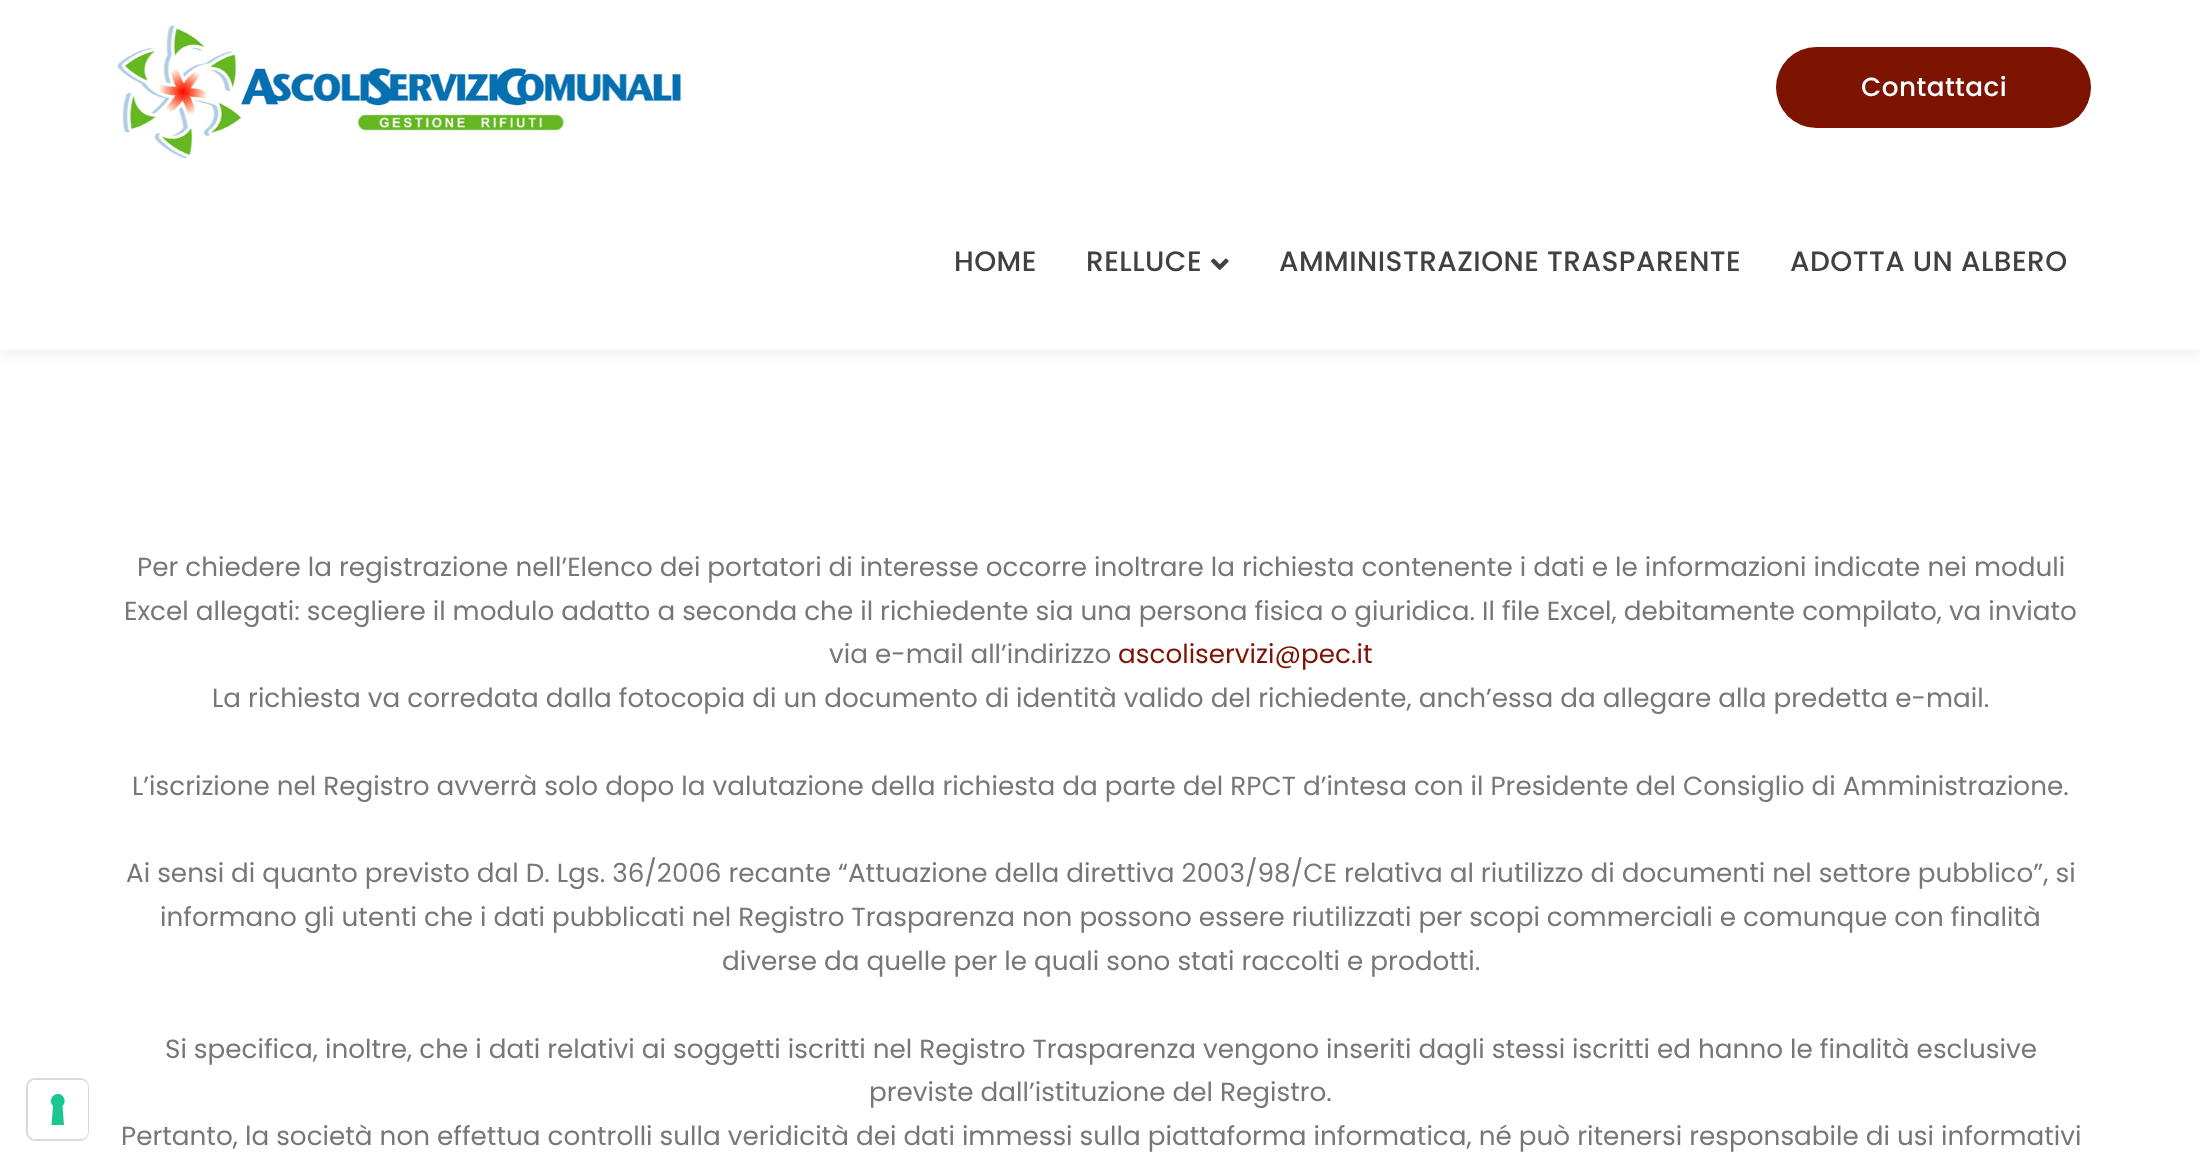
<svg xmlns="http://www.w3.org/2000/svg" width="2200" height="1166">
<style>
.a{font:500 26.25px Poppins;letter-spacing:0.45px;fill:#fff}
.b{font:500 28px Poppins;letter-spacing:0.45px;fill:#414042}
.c{font:26.25px Poppins;fill:#777}
.d{font:26.25px Poppins;fill:#7d1401}
</style>
<rect width="100%" height="100%" fill="#fff"/>
<rect fill="none" stroke="#d9d9d9" stroke-width="2" x="27" y="1079" width="61" height="61" rx="8"/>
<rect fill="#fff" x="28" y="1080" width="60" height="59" rx="7"/>
<path fill="#1cc691" fill-rule="evenodd" d="M58 1094c6 0 9 8 4.5 12l1.5 19h-12.5l1.5-19c-4.5-4-1.5-12 5-12z"/>
<path fill="#0000001a" filter="blur(9px)" d="M0 0h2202v350H0z"/>
<path fill="#fff" d="M0 0h2200v350H0z"/>
<image href="1.png" x="116" y="25" width="565" height="134"/>
<rect fill="#7d1401" x="1776" y="47" width="315" height="81" rx="40.5"/>
<image href="2.png" x="1211" y="258" width="18" height="12"/>
<text class="a" x="1861" y="96">Contattaci</text>
<text class="b" x="954" y="271">HOME</text>
<text class="b" x="1086" y="271">RELLUCE</text>
<text class="b" x="1279" y="271">AMMINISTRAZIONE TRASPARENTE</text>
<text class="b" x="1790" y="271">ADOTTA UN ALBERO</text>
<text class="c" x="137" y="576">Per chiedere la registrazione nell’Elenco dei portatori di interesse occorre inoltrare la richiesta contenente i dati e le informazioni indicate nei moduli</text>
<text class="c" x="124" y="620">Excel allegati: scegliere il modulo adatto a seconda che il richiedente sia una persona fisica o giuridica. Il file Excel, debitamente compilato, va inviato</text>
<text class="c" x="829" y="663">via e-mail all’indirizzo</text>
<text class="d" x="1118" y="663">ascoliservizi@pec.it</text>
<text class="c" x="212" y="707">La richiesta va corredata dalla fotocopia di un documento di identità valido del richiedente, anch’essa da allegare alla predetta e-mail.</text>
<text class="c" x="132" y="795">L’iscrizione nel Registro avverrà solo dopo la valutazione della richiesta da parte del RPCT d’intesa con il Presidente del Consiglio di Amministrazione.</text>
<text class="c" x="126" y="882">Ai sensi di quanto previsto dal D. Lgs. 36/2006 recante “Attuazione della direttiva 2003/98/CE relativa al riutilizzo di documenti nel settore pubblico”, si</text>
<text class="c" x="160" y="926">informano gli utenti che i dati pubblicati nel Registro Trasparenza non possono essere riutilizzati per scopi commerciali e comunque con finalità</text>
<text class="c" x="722" y="970">diverse da quelle per le quali sono stati raccolti e prodotti.</text>
<text class="c" x="165" y="1058">Si specifica, inoltre, che i dati relativi ai soggetti iscritti nel Registro Trasparenza vengono inseriti dagli stessi iscritti ed hanno le finalità esclusive</text>
<text class="c" x="869" y="1101">previste dall’istituzione del Registro.</text>
<text class="c" x="121" y="1145">Pertanto, la società non effettua controlli sulla veridicità dei dati immessi sulla piattaforma informatica, né può ritenersi responsabile di usi informativi</text>
</svg>
